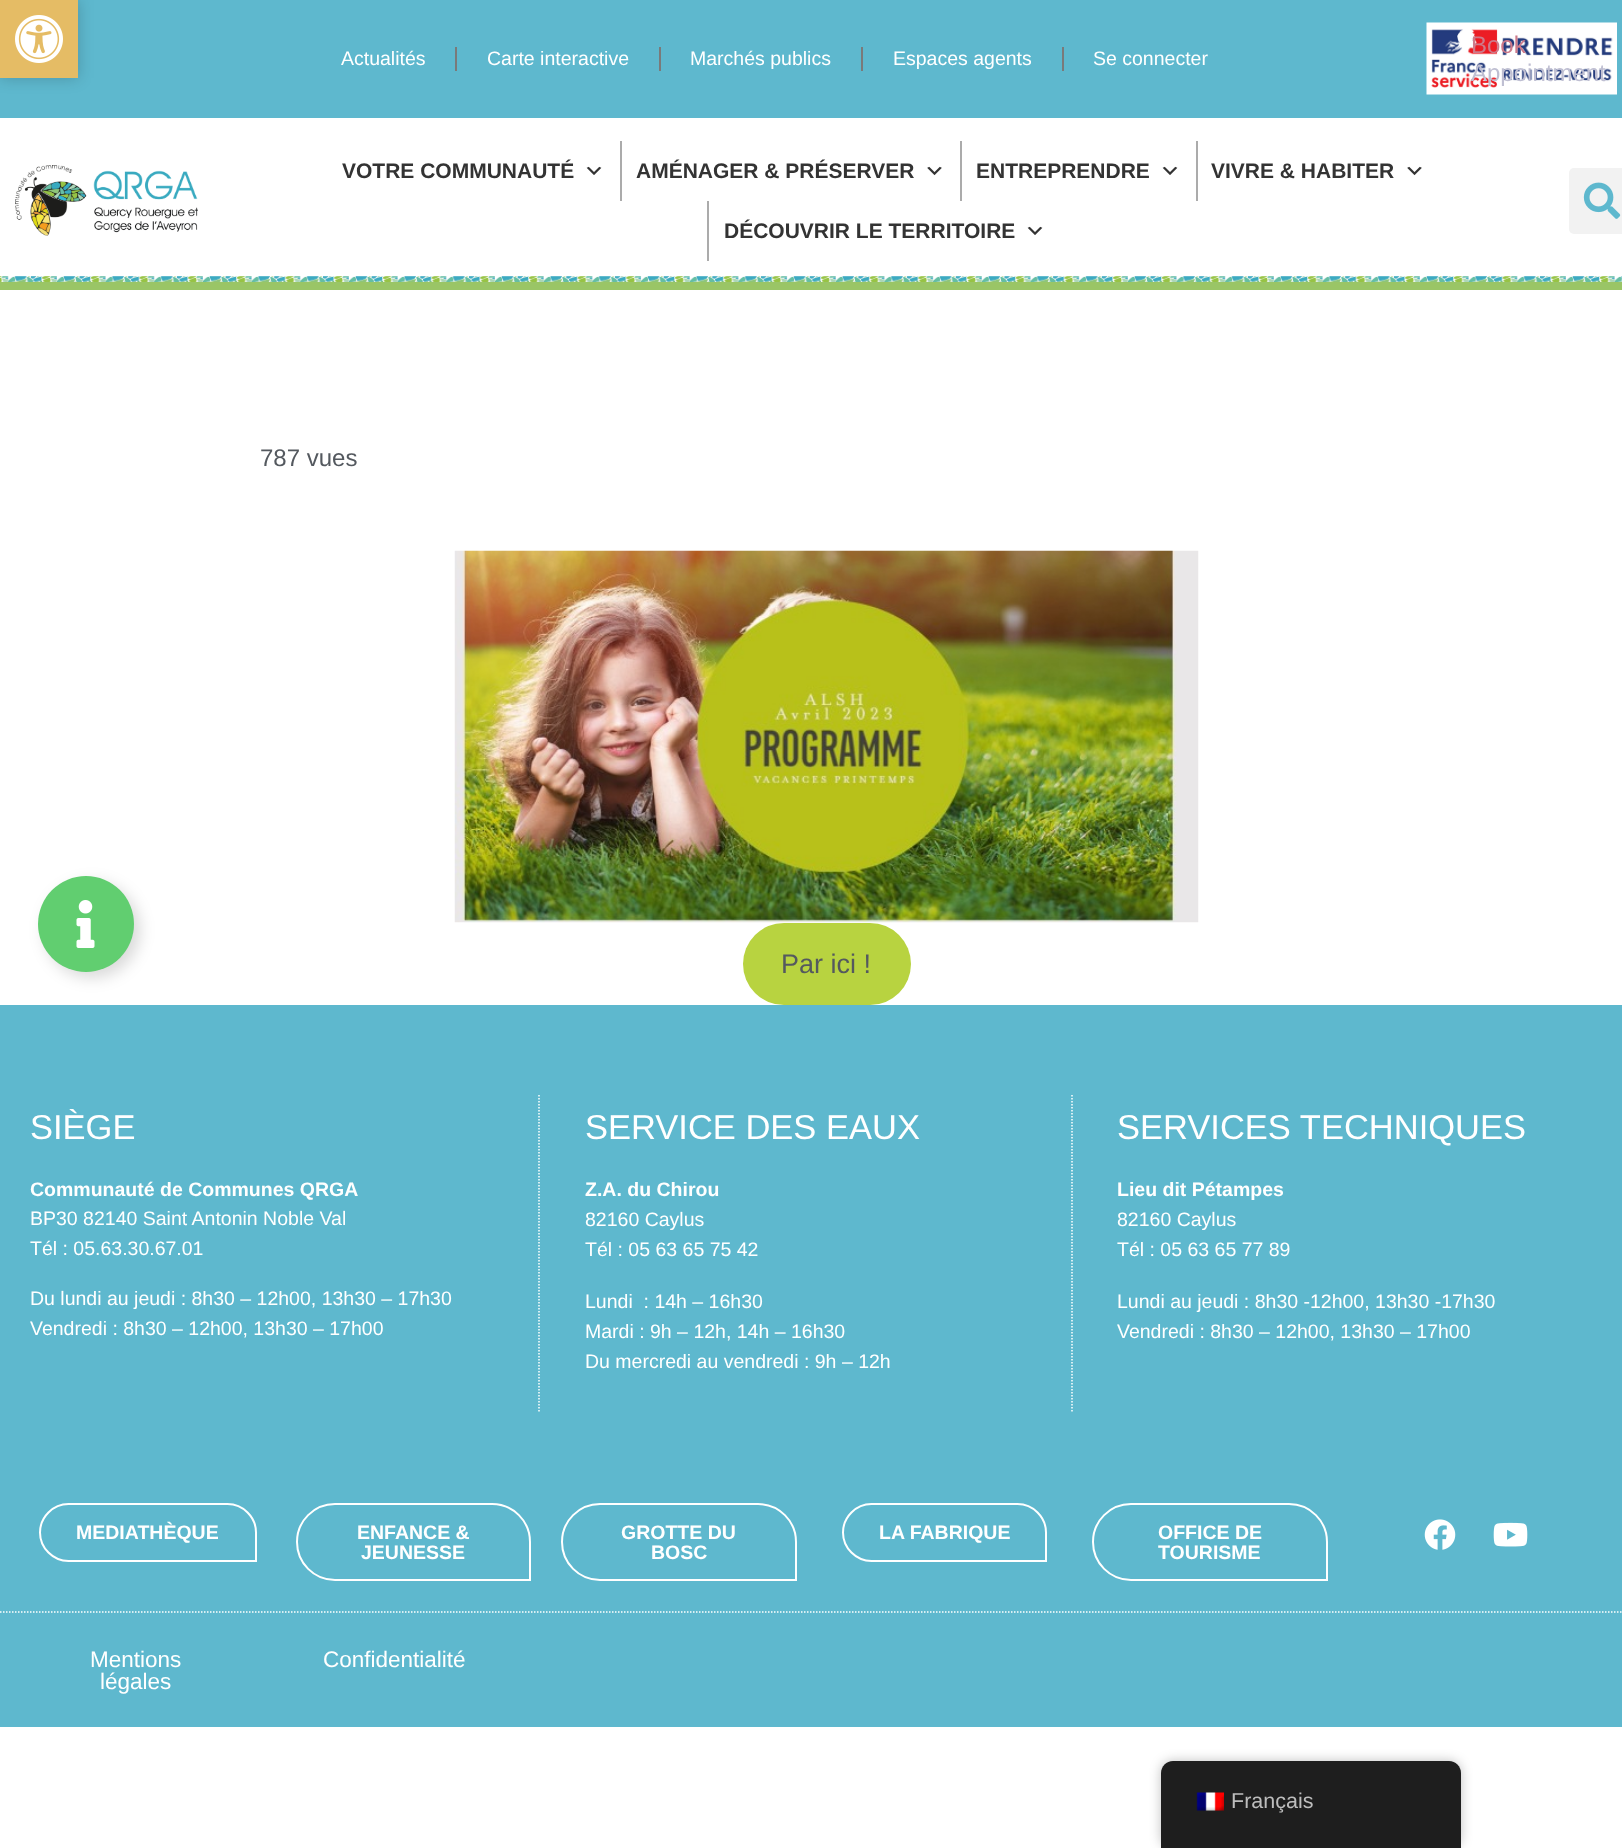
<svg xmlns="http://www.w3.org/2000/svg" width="1622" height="1848">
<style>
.a{font:19.5px Liberation Sans;fill:#fff}
.b{font:24px Liberation Sans;fill:#cd7a8a}
.c{font:24px Liberation Sans;fill:#bfbfd2}
.d{font:bold 21px Liberation Sans;fill:#333}
.e{font:24px Liberation Sans;fill:#54595f}
.f{font:27px Liberation Sans;fill:#54595f}
.g{font:34.5px Liberation Sans;fill:#fff}
.h{font:bold 19.5px Liberation Sans;fill:#fff}
.i{font:22.5px Liberation Sans;fill:#fff}
.j{font:21.5px Liberation Sans;fill:#bdbdbd}
</style>
<rect width="100%" height="100%" fill="#fff"/>
<path fill="#5eb8ce" d="M0 0h1622v118H0z"/>
<path fill="#00000033" filter="blur(7.5px)" d="M0 0h78v78H0z"/>
<path fill="#e5bc65" d="M0 0h78v78H0z"/>
<image href="1.png" x="15" y="15" width="48" height="48"/>
<path fill="#7a7a7a" d="M455 47h2v24H455z"/>
<path fill="#7a7a7a" d="M659 47h2v24H659z"/>
<path fill="#7a7a7a" d="M861 47h2v24H861z"/>
<path fill="#7a7a7a" d="M1062 47h2v24H1062z"/>
<image href="2.png" x="1426" y="22" width="191" height="73"/>
<image href="3.png" x="0" y="276" width="1622" height="6"/>
<path fill="#9ac566" d="M0 282h1622v8H0z"/>
<image href="4.png" x="15" y="165" width="183" height="71"/>
<image href="5.png" x="586" y="166" width="16" height="9"/>
<path fill="#ababab" d="M620 141h2v60H620z"/>
<image href="6.png" x="927" y="166" width="15" height="10"/>
<path fill="#ababab" d="M960 141h2v60H960z"/>
<image href="5.png" x="1162" y="166" width="16" height="9"/>
<path fill="#ababab" d="M1196 141h2v60H1196z"/>
<image href="6.png" x="1407" y="166" width="15" height="10"/>
<path fill="#ababab" d="M707 201h2v60H707z"/>
<image href="5.png" x="1027" y="226" width="16" height="9"/>
<rect fill="#f2f2f2" x="1569" y="168" width="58" height="66" rx="5"/>
<image href="7.png" x="1583" y="182" width="38" height="37"/>
<rect fill="#00000026" filter="blur(7.5px)" x="44" y="882" width="96" height="96" rx="48"/>
<circle fill="#61ce70" cx="86" cy="924" r="48"/>
<image href="8.png" x="76" y="900" width="19" height="48"/>
<image href="9.png" x="454" y="550" width="745" height="373"/>
<rect fill="#b8d340" x="743" y="923" width="168" height="82" rx="41"/>
<path fill="#5eb8ce" d="M0 1005h1622v722H0z"/>
<path fill="none" stroke="#fff" stroke-width="1.5" stroke-dasharray="1.5 1.5" d="M539 1095v318"/>
<path fill="none" stroke="#fff" stroke-width="1.5" stroke-dasharray="1.5 1.5" d="M1072 1095v318"/>
<path fill="none" stroke="#fff" stroke-width="2" d="M68.5 1504h159c15.5 0 28.5 13 28.5 28.5v28.5h-187.5c-15.5 0-28.5-13-28.5-28.5c0-15.5 13-28.5 28.5-28.5z"/>
<path fill="none" stroke="#fff" stroke-width="2" d="M335 1504h157c21 0 38 17 38 38v38h-195c-21 0-38-17-38-38c0-21 17-38 38-38z"/>
<path fill="none" stroke="#fff" stroke-width="2" d="M600 1504h158c21 0 38 17 38 38v38h-196c-21 0-38-17-38-38c0-21 17-38 38-38z"/>
<path fill="none" stroke="#fff" stroke-width="2" d="M871.5 1504h146c15.5 0 28.5 13 28.5 28.5v28.5h-174.5c-15.5 0-28.5-13-28.5-28.5c0-15.5 13-28.5 28.5-28.5z"/>
<path fill="none" stroke="#fff" stroke-width="2" d="M1131 1504h158c21 0 38 17 38 38v38h-196c-21 0-38-17-38-38c0-21 17-38 38-38z"/>
<image href="10.png" x="1424" y="1519" width="32" height="31"/>
<image href="11.png" x="1493" y="1522" width="35" height="25"/>
<path fill="none" stroke="#fff" stroke-width="1.5" stroke-dasharray="1.5 1.5" d="M0 1612h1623"/>
<rect fill="#00000040" filter="blur(6px)" x="1161" y="1761" width="300" height="87" rx="12"/>
<path fill="#1e1e1e" d="M1173 1761h276c6.5 0 12 5.5 12 12v75h-300v-75c0-6.5 5.5-12 12-12z"/>
<image href="12.png" x="1196" y="1792" width="28" height="19"/>
<text class="a" x="341" y="65">Actualités</text>
<text class="a" x="487" y="65">Carte interactive</text>
<text class="a" x="690" y="65">Marchés publics</text>
<text class="a" x="893" y="65">Espaces agents</text>
<text class="a" x="1093" y="65">Se connecter</text>
<text class="b" x="1471" y="53">Book</text>
<text class="c" x="1471" y="81">Appointment</text>
<text class="d" x="342" y="178">VOTRE COMMUNAUTÉ</text>
<text class="d" x="636" y="178">AMÉNAGER &amp; PRÉSERVER</text>
<text class="d" x="976" y="178">ENTREPRENDRE</text>
<text class="d" x="1211" y="178">VIVRE &amp; HABITER</text>
<text class="d" x="724" y="238">DÉCOUVRIR LE TERRITOIRE</text>
<text class="e" x="260" y="466">787 vues</text>
<text class="f" x="781" y="973">Par ici !</text>
<text class="g" x="30" y="1139">SIÈGE</text>
<text class="h" x="30" y="1196">Communauté de Communes QRGA</text>
<text class="a" x="30" y="1225">BP30 82140 Saint Antonin Noble Val</text>
<text class="a" x="30" y="1255">Tél : 05.63.30.67.01</text>
<text class="a" x="30" y="1305">Du lundi au jeudi : 8h30 – 12h00, 13h30 – 17h30</text>
<text class="a" x="30" y="1335">Vendredi : 8h30 – 12h00, 13h30 – 17h00</text>
<text class="g" x="585" y="1139">SERVICE DES EAUX</text>
<text class="h" x="585" y="1196">Z.A. du Chirou</text>
<text class="a" x="585" y="1226">82160 Caylus</text>
<text class="a" x="585" y="1256">Tél : 05 63 65 75 42</text>
<text class="a" xml:space="preserve" x="585" y="1308">Lundi  : 14h – 16h30</text>
<text class="a" x="585" y="1338">Mardi : 9h – 12h, 14h – 16h30</text>
<text class="a" x="585" y="1368">Du mercredi au vendredi : 9h – 12h</text>
<text class="g" x="1117" y="1139">SERVICES TECHNIQUES</text>
<text class="h" x="1117" y="1196">Lieu dit Pétampes</text>
<text class="a" x="1117" y="1226">82160 Caylus</text>
<text class="a" x="1117" y="1256">Tél : 05 63 65 77 89</text>
<text class="a" x="1117" y="1308">Lundi au jeudi : 8h30 -12h00, 13h30 -17h30</text>
<text class="a" x="1117" y="1338">Vendredi : 8h30 – 12h00, 13h30 – 17h00</text>
<text class="h" x="76" y="1539">MEDIATHÈQUE</text>
<text class="h" x="357" y="1539">ENFANCE &amp;</text>
<text class="h" x="361" y="1559">JEUNESSE</text>
<text class="h" x="621" y="1539">GROTTE DU</text>
<text class="h" x="651" y="1559">BOSC</text>
<text class="h" x="879" y="1539">LA FABRIQUE</text>
<text class="h" x="1158" y="1539">OFFICE DE</text>
<text class="h" x="1158" y="1559">TOURISME</text>
<text class="i" x="90" y="1667">Mentions</text>
<text class="i" x="100" y="1689">légales</text>
<text class="i" x="323" y="1667">Confidentialité</text>
<text class="j" x="1231" y="1808">Français</text>
</svg>
